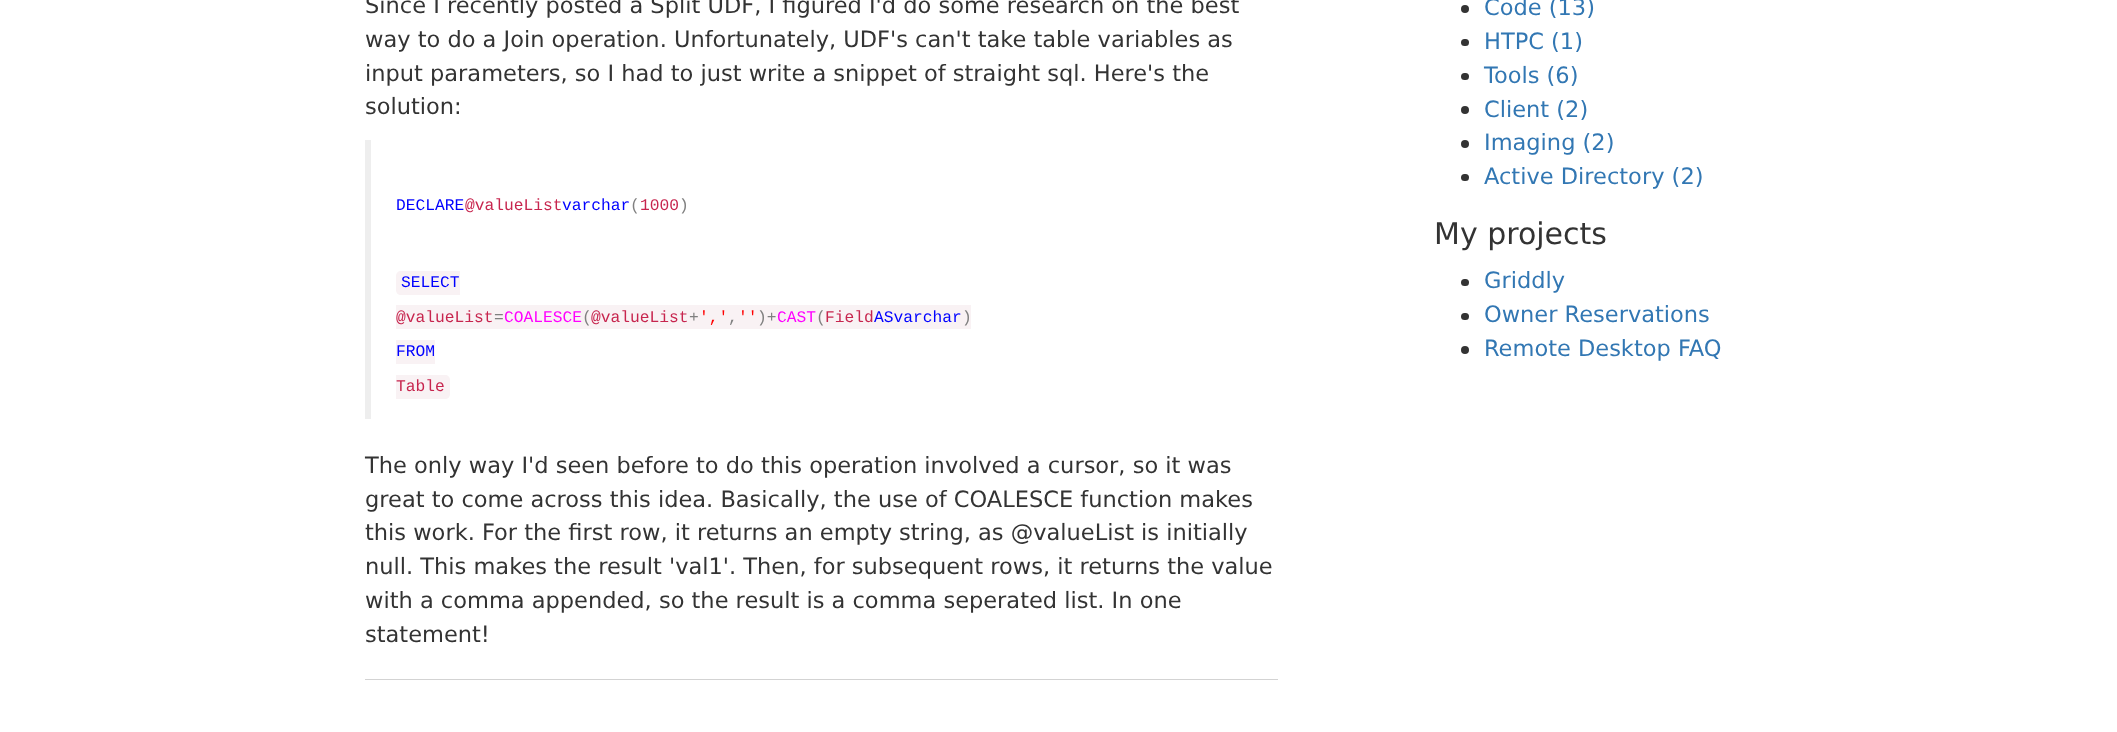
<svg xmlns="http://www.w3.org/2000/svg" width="2117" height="732">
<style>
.a{font:22.5px DejaVu Sans;fill:#333}
.b{font:16.25px Liberation Mono;fill:#00f}
.c{font:16.25px Liberation Mono;fill:#c7254e}
.d{font:16.25px Liberation Mono;fill:#808080}
.e{font:16.25px Liberation Mono;fill:#f0f}
.f{font:16.25px Liberation Mono;fill:#f00}
.g{font:22.5px DejaVu Sans;fill:#3277b3}
.h{font:30px DejaVu Sans;fill:#333}
</style>
<rect width="100%" height="100%" fill="#fff"/>
<path fill="#d3d3d3" d="M365 679h913v1H365z"/>
<path fill="#eee" d="M365 140h6v279H365z"/>
<path fill="#f9f2f4" d="M401 271h59v24h-59c-3 0-5-2-5-5v-14c0-3 2-5 5-5z"/>
<path fill="#f9f2f4" d="M396 305h575v24H396z"/>
<path fill="#f9f2f4" d="M396 340h39v24H396z"/>
<path fill="#f9f2f4" d="M396 375h49c3 0 5 2 5 5v14c0 3-2 5-5 5h-49z"/>
<circle fill="#333" cx="1465" cy="9" r="4"/>
<rect fill="#333" x="1461" y="39" width="8" height="7" rx="3.5"/>
<rect fill="#333" x="1461" y="73" width="8" height="7" rx="3.5"/>
<circle fill="#333" cx="1465" cy="110" r="4"/>
<circle fill="#333" cx="1465" cy="144" r="4"/>
<rect fill="#333" x="1461" y="174" width="8" height="7" rx="3.5"/>
<rect fill="#333" x="1461" y="279" width="8" height="7" rx="3.5"/>
<rect fill="#333" x="1461" y="313" width="8" height="7" rx="3.5"/>
<circle fill="#333" cx="1465" cy="350" r="4"/>
<text class="a" x="365" y="13">Since I recently posted a Split UDF, I figured I'd do some research on the best</text>
<text class="a" x="365" y="47">way to do a Join operation. Unfortunately, UDF's can't take table variables as</text>
<text class="a" x="365" y="81">input parameters, so I had to just write a snippet of straight sql. Here's the</text>
<text class="a" x="365" y="114">solution:</text>
<text class="b" x="396" y="210">DECLARE</text>
<text class="c" x="465" y="210">@valueList</text>
<text class="b" x="562" y="210">varchar</text>
<text class="d" x="630" y="210">(</text>
<text class="c" x="640" y="210">1000</text>
<text class="d" x="679" y="210">)</text>
<text class="b" x="401" y="287">SELECT</text>
<text class="c" x="396" y="322">@valueList</text>
<text class="d" x="494" y="322">=</text>
<text class="e" x="504" y="322">COALESCE</text>
<text class="d" x="582" y="322">(</text>
<text class="c" x="591" y="322">@valueList</text>
<text class="d" x="689" y="322">+</text>
<text class="f" x="699" y="322">',' ''</text>
<text class="d" x="757" y="322">)+</text>
<text class="e" x="777" y="322">CAST</text>
<text class="d" x="816" y="322">(</text>
<text class="c" x="825" y="322">Field</text>
<text class="b" x="874" y="322">ASvarchar</text>
<text class="d" x="962" y="322">)</text>
<text class="d" x="728" y="322">,</text>
<text class="b" x="396" y="356">FROM</text>
<text class="c" x="396" y="391">Table</text>
<text class="a" x="365" y="473">The only way I'd seen before to do this operation involved a cursor, so it was</text>
<text class="a" x="365" y="507">great to come across this idea. Basically, the use of COALESCE function makes</text>
<text class="a" x="365" y="540">this work. For the first row, it returns an empty string, as @valueList is initially</text>
<text class="a" x="365" y="574">null. This makes the result 'val1'. Then, for subsequent rows, it returns the value</text>
<text class="a" x="365" y="608">with a comma appended, so the result is a comma seperated list. In one</text>
<text class="a" x="365" y="642">statement!</text>
<text class="g" x="1484" y="15">Code (13)</text>
<text class="g" x="1484" y="49">HTPC (1)</text>
<text class="g" x="1484" y="83">Tools (6)</text>
<text class="g" x="1484" y="117">Client (2)</text>
<text class="g" x="1484" y="150">Imaging (2)</text>
<text class="g" x="1484" y="184">Active Directory (2)</text>
<text class="h" x="1434" y="244">My projects</text>
<text class="g" x="1484" y="288">Griddly</text>
<text class="g" x="1484" y="322">Owner Reservations</text>
<text class="g" x="1484" y="356">Remote Desktop FAQ</text>
</svg>
